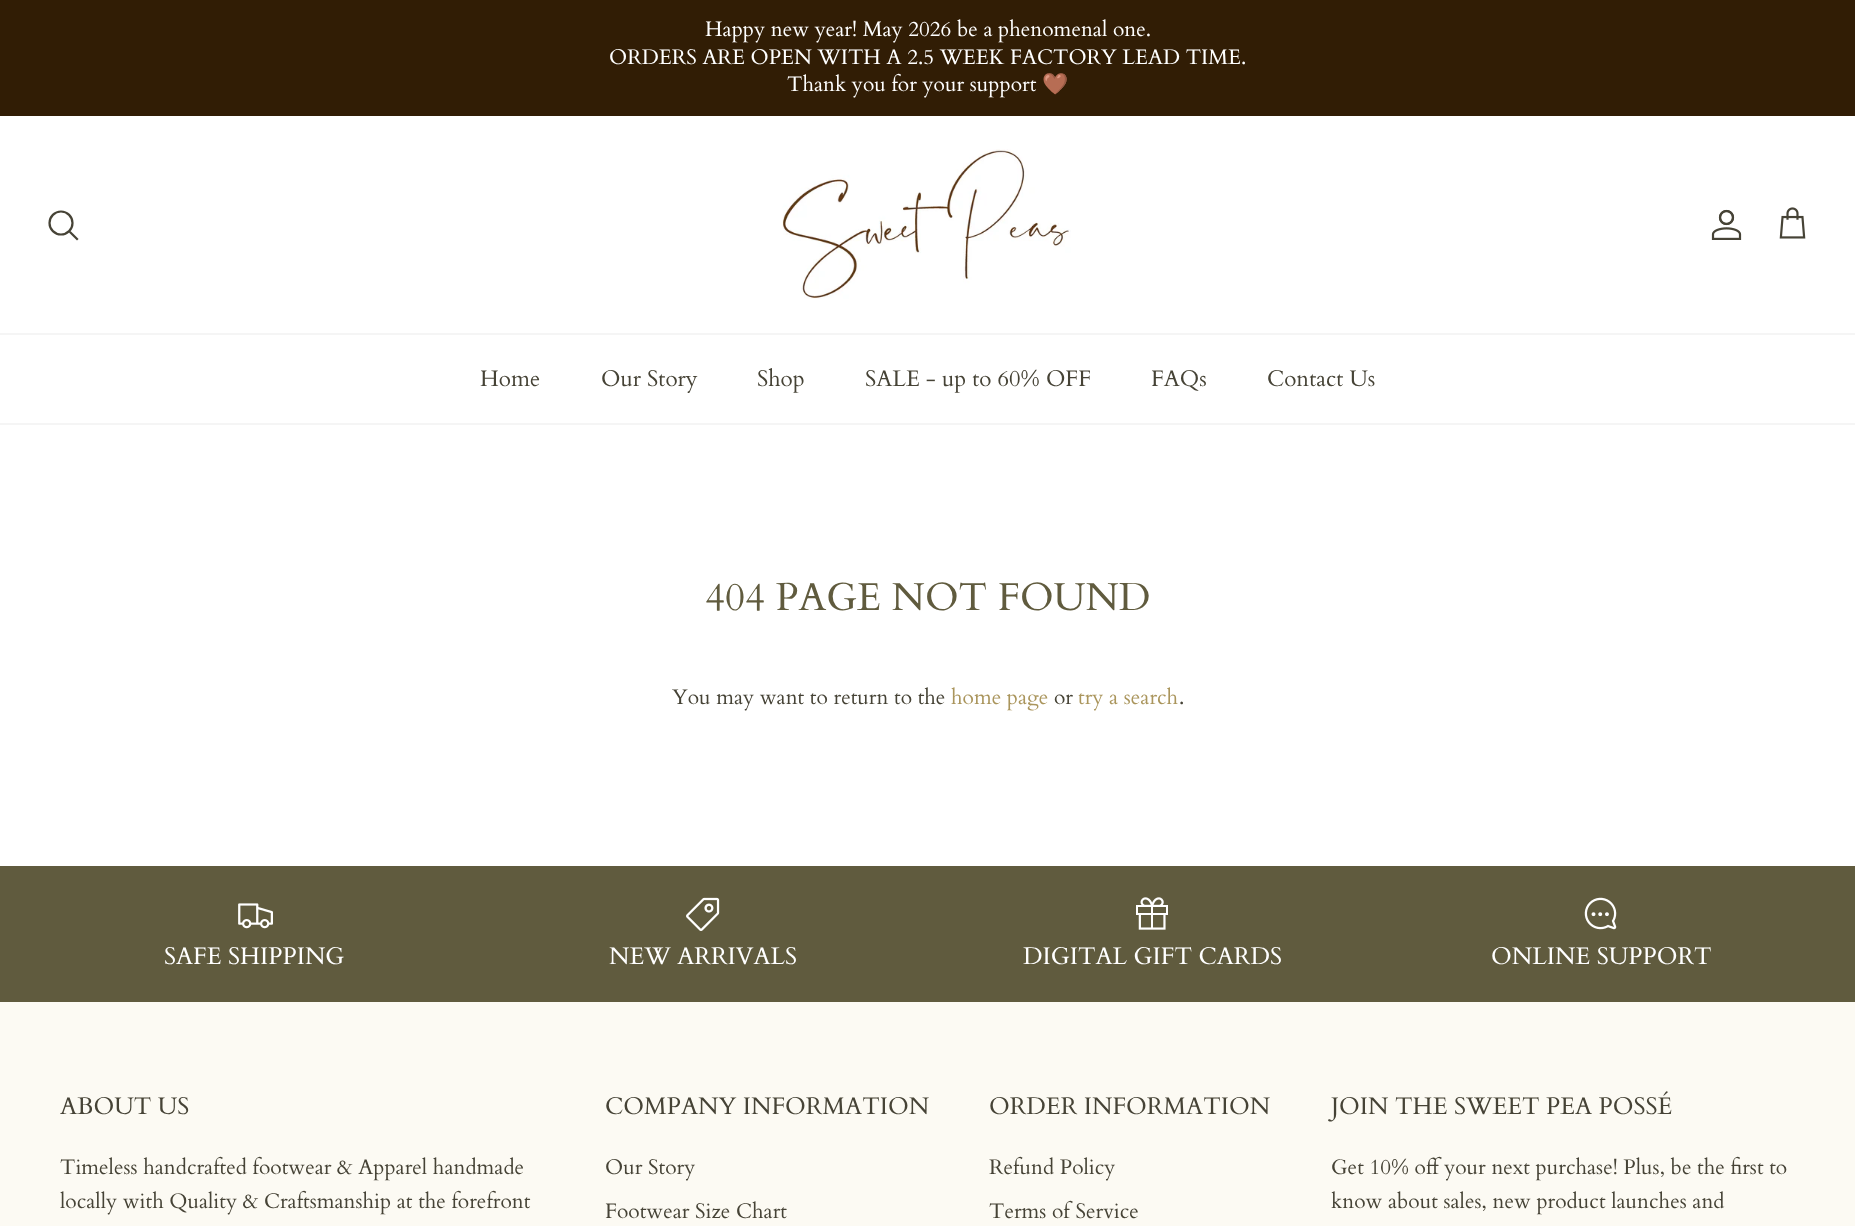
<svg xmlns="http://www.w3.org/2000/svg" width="1855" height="1226">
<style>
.a{font:21px Cardo;fill:#fff}
.b{font:21px Noto Color Emoji;fill:#fff}
.c{font:22.5px Cardo;fill:#464336}
.d{font:39px Cardo;fill:#605b3e}
.e{font:21px Cardo;fill:#464336}
.f{font:21px Cardo;fill:#aa955c}
.g{font:24px Cardo;fill:#fff}
.h{font:24px Cardo;fill:#464336}
</style>
<rect width="100%" height="100%" fill="#fff"/>
<path fill="#311d05" d="M0 0h1855v116H0z"/>
<path fill="#f5f5f5" d="M0 333h1855v2H0z"/>
<circle fill="none" stroke="#464336" stroke-width="2.2" cx="61" cy="223" r="11.5"/>
<path fill="none" stroke="#464336" stroke-width="2.2" stroke-linecap="square" d="M70.5 232.5l6.5 6.5"/>
<image href="1.png" x="782" y="149" width="289" height="150"/>
<image href="2.png" x="1711" y="209" width="31" height="31"/>
<image href="3.png" x="1779" y="207" width="27" height="32"/>
<path fill="#f5f5f5" d="M0 423h1855v2H0z"/>
<path fill="#fcfaf3" d="M0 1002h1855v224H0z"/>
<path fill="#605b3e" d="M0 866h1855v136H0z"/>
<image href="4.png" x="238" y="903" width="35" height="26"/>
<image href="5.png" x="686" y="897" width="34" height="34"/>
<image href="6.png" x="1136" y="897" width="32" height="33"/>
<image href="7.png" x="1584" y="897" width="33" height="33"/>
<text class="a" x="705" y="36">Happy new year! May 2026 be a phenomenal one.</text>
<text class="a" x="609" y="64">ORDERS ARE OPEN WITH A 2.5 WEEK FACTORY LEAD TIME.</text>
<text class="a" x="787" y="91">Thank you for your support</text>
<text class="b" x="1042" y="91">🤎</text>
<text class="c" x="480" y="386">Home</text>
<text class="c" x="601" y="386">Our Story</text>
<text class="c" x="757" y="386">Shop</text>
<text class="c" x="865" y="386">SALE - up to 60% OFF</text>
<text class="c" x="1151" y="386">FAQs</text>
<text class="c" x="1267" y="386">Contact Us</text>
<text class="d" x="705" y="610">404 PAGE NOT FOUND</text>
<text class="e" x="672" y="704">You may want to return to the</text>
<text class="f" x="951" y="704">home page</text>
<text class="e" x="1054" y="704">or</text>
<text class="f" x="1078" y="704">try a search</text>
<text class="e" x="1179" y="704">.</text>
<text class="g" x="164" y="964">SAFE SHIPPING</text>
<text class="g" x="609" y="964">NEW ARRIVALS</text>
<text class="g" x="1023" y="964">DIGITAL GIFT CARDS</text>
<text class="g" x="1491" y="964">ONLINE SUPPORT</text>
<text class="h" x="60" y="1114">ABOUT US</text>
<text class="e" x="60" y="1174">Timeless handcrafted footwear &amp; Apparel handmade</text>
<text class="e" x="60" y="1208">locally with Quality &amp; Craftsmanship at the forefront</text>
<text class="h" x="605" y="1114">COMPANY INFORMATION</text>
<text class="e" x="605" y="1174">Our Story</text>
<text class="e" x="605" y="1218">Footwear Size Chart</text>
<text class="h" x="989" y="1114">ORDER INFORMATION</text>
<text class="e" x="989" y="1174">Refund Policy</text>
<text class="e" x="989" y="1218">Terms of Service</text>
<text class="h" x="1331" y="1114">JOIN THE SWEET PEA POSSÉ</text>
<text class="e" x="1331" y="1174">Get 10% off your next purchase! Plus, be the first to</text>
<text class="e" x="1331" y="1208">know about sales, new product launches and</text>
</svg>
